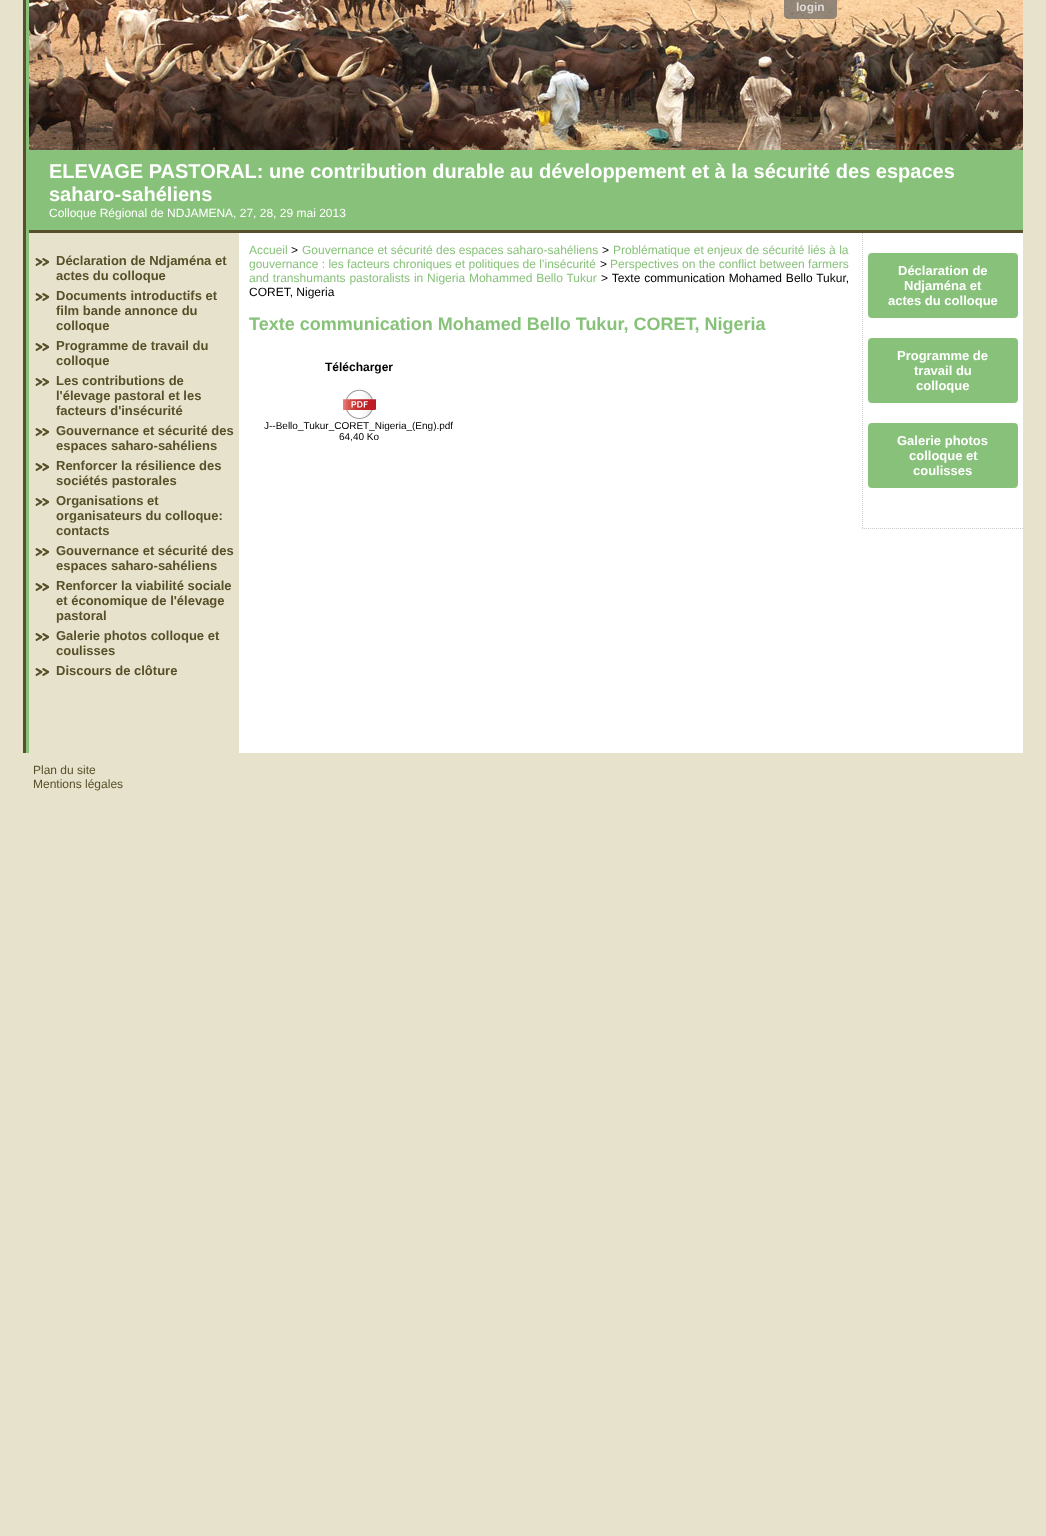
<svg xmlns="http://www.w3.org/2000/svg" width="1046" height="1536">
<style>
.a{font:bold 12px Liberation Sans;fill:#dedad6}
.b{font:12px Liberation Sans;fill:#585029}
.c{font:bold 20px Liberation Sans;fill:#fff}
.d{font:12px Liberation Sans;fill:#fff}
.e{font:bold 13px Liberation Sans;fill:#585029}
.f{font:12px Liberation Sans;fill:#88c27a}
.g{font:12px Liberation Sans;fill:#000}
.h{font:bold 18px Liberation Sans;fill:#88c27a}
.i{font:bold 12px Liberation Sans;fill:#000}
.j{font:10px Liberation Sans;fill:#000}
.k{font:bold 13px Liberation Sans;fill:#fff}
</style>
<rect width="100%" height="100%" fill="#e7e2cc"/>
<image href="1.png" x="29" y="0" width="994" height="150"/>
<path fill="#666666b3" d="M784-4h53v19c0 2-2 4-4 4h-45c-2 0-4-2-4-4z"/>
<path fill="#58502c" d="M23 0h3v753H23z"/>
<path fill="#fff" d="M239 233h784v520H239z"/>
<path fill="#88c27a" d="M26 0h3v753H26z"/>
<path fill="#88c27a" d="M29 150h994v80H29z"/>
<path fill="#58502c" d="M29 230h994v3H29z"/>
<image href="2.png" x="34" y="257" width="16" height="9"/>
<image href="2.png" x="34" y="292" width="16" height="9"/>
<image href="2.png" x="34" y="342" width="16" height="9"/>
<image href="2.png" x="34" y="377" width="16" height="9"/>
<image href="2.png" x="34" y="427" width="16" height="9"/>
<image href="2.png" x="34" y="462" width="16" height="9"/>
<image href="2.png" x="34" y="497" width="16" height="9"/>
<image href="2.png" x="34" y="547" width="16" height="9"/>
<image href="2.png" x="34" y="582" width="16" height="9"/>
<image href="2.png" x="34" y="632" width="16" height="9"/>
<image href="2.png" x="34" y="667" width="16" height="9"/>
<image href="3.png" x="343" y="389" width="33" height="30"/>
<path fill="none" stroke="#ccc" stroke-dasharray="1 1" d="M862 528.5h161"/>
<path fill="none" stroke="#ccc" stroke-dasharray="1 1" d="M862.5 233v296"/>
<rect fill="#88c27a" x="868" y="253" width="150" height="65" rx="4"/>
<rect fill="#88c27a" x="868" y="338" width="150" height="65" rx="4"/>
<rect fill="#88c27a" x="868" y="423" width="150" height="65" rx="4"/>
<text class="a" x="796" y="11">login</text>
<text class="b" x="33" y="774">Plan du site</text>
<text class="b" x="33" y="788">Mentions légales</text>
<text class="c" x="49" y="178">ELEVAGE PASTORAL: une contribution durable au développement et à la sécurité des espaces</text>
<text class="c" x="49" y="201">saharo-sahéliens</text>
<text class="d" x="49" y="217">Colloque Régional de NDJAMENA, 27, 28, 29 mai 2013</text>
<text class="e" x="56" y="265">Déclaration de Ndjaména et</text>
<text class="e" x="56" y="280">actes du colloque</text>
<text class="e" x="56" y="300">Documents introductifs et</text>
<text class="e" x="56" y="315">film bande annonce du</text>
<text class="e" x="56" y="330">colloque</text>
<text class="e" x="56" y="350">Programme de travail du</text>
<text class="e" x="56" y="365">colloque</text>
<text class="e" x="56" y="385">Les contributions de</text>
<text class="e" x="56" y="400">l'élevage pastoral et les</text>
<text class="e" x="56" y="415">facteurs d'insécurité</text>
<text class="e" x="56" y="435">Gouvernance et sécurité des</text>
<text class="e" x="56" y="450">espaces saharo-sahéliens</text>
<text class="e" x="56" y="470">Renforcer la résilience des</text>
<text class="e" x="56" y="485">sociétés pastorales</text>
<text class="e" x="56" y="505">Organisations et</text>
<text class="e" x="56" y="520">organisateurs du colloque:</text>
<text class="e" x="56" y="535">contacts</text>
<text class="e" x="56" y="555">Gouvernance et sécurité des</text>
<text class="e" x="56" y="570">espaces saharo-sahéliens</text>
<text class="e" x="56" y="590">Renforcer la viabilité sociale</text>
<text class="e" x="56" y="605">et économique de l'élevage</text>
<text class="e" x="56" y="620">pastoral</text>
<text class="e" x="56" y="640">Galerie photos colloque et</text>
<text class="e" x="56" y="655">coulisses</text>
<text class="e" x="56" y="675">Discours de clôture</text>
<text class="f" x="249" y="254">Accueil</text>
<text class="g" x="291" y="254">&gt;</text>
<text class="f" x="302" y="254">Gouvernance et sécurité des espaces saharo-sahéliens</text>
<text class="g" x="602" y="254">&gt;</text>
<text class="f" x="613" y="254">Problématique et enjeux de sécurité liés à la</text>
<text class="f" x="249" y="268">gouvernance : les facteurs chroniques et politiques de l’insécurité</text>
<text class="g" x="600" y="268">&gt;</text>
<text class="f" x="610" y="268">Perspectives on the conflict between farmers</text>
<text class="f" x="249" y="282" word-spacing="0.5">and transhumants pastoralists in Nigeria Mohammed Bello Tukur</text>
<text class="g" x="601" y="282" word-spacing="0.5">&gt; Texte communication Mohamed Bello Tukur,</text>
<text class="g" x="249" y="296">CORET, Nigeria</text>
<text class="h" x="249" y="330">Texte communication Mohamed Bello Tukur, CORET, Nigeria</text>
<text class="i" x="325" y="371">Télécharger</text>
<text class="j" x="264" y="429">J--Bello_Tukur_CORET_Nigeria_(Eng).pdf</text>
<text class="j" x="339" y="440">64,40 Ko</text>
<text class="k" x="898" y="275">Déclaration de</text>
<text class="k" x="904" y="290">Ndjaména et</text>
<text class="k" x="888" y="305">actes du colloque</text>
<text class="k" x="897" y="360">Programme de</text>
<text class="k" x="914" y="375">travail du</text>
<text class="k" x="916" y="390">colloque</text>
<text class="k" x="897" y="445">Galerie photos</text>
<text class="k" x="909" y="460">colloque et</text>
<text class="k" x="913" y="475">coulisses</text>
</svg>
